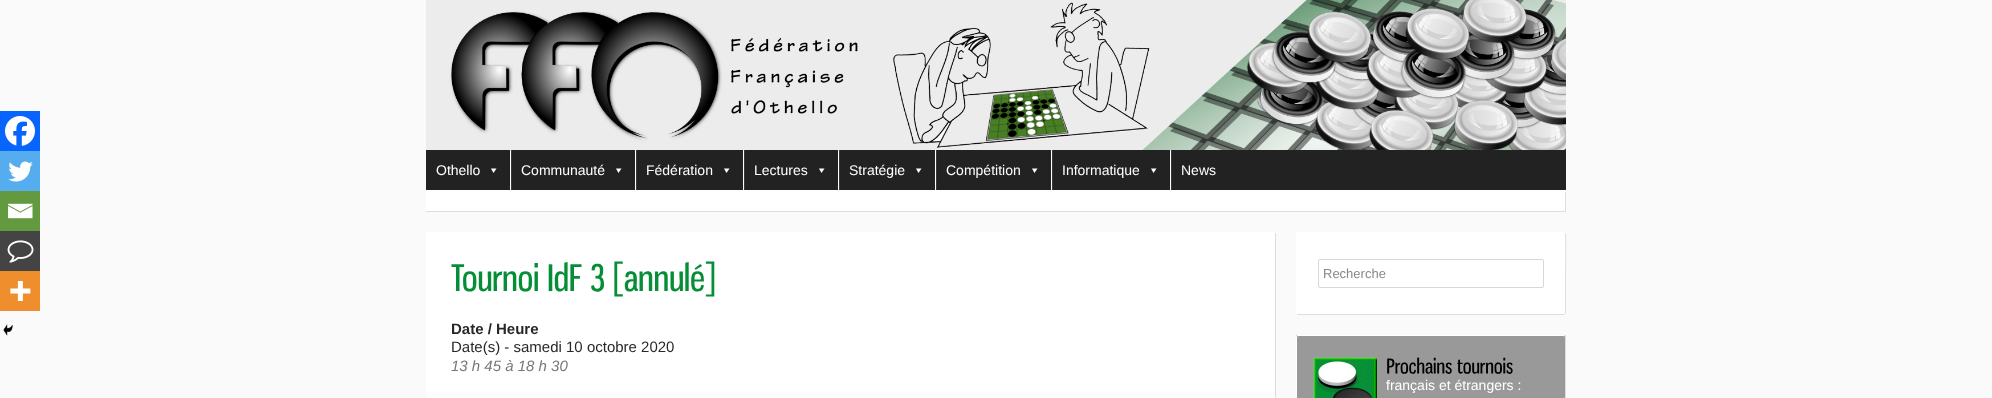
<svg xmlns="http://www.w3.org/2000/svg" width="1992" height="398">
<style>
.a{font:14px Liberation Sans;fill:#fff}
.b{font:bold 15px Liberation Sans;fill:#282828}
.c{font:15px Liberation Sans;fill:#282828}
.d{font:italic 15px Liberation Sans;fill:#777}
.e{font:13px Liberation Sans;fill:#888}
</style>
<rect width="100%" height="100%" fill="#fafafa"/>
<image href="1.png" x="426" y="0" width="1140" height="150"/>
<path fill="#222" d="M426 150h1140v40H426z"/>
<path fill="#fff" d="M496.5 168.5l-3 4.5l-2.5-4.5z"/>
<path fill="#383838" d="M511 150h1v40H511z"/>
<path fill="#fff" d="M510 150h1v40H510z"/>
<path fill="#fff" d="M621.5 168.5l-3 4.5l-2.5-4.5z"/>
<path fill="#383838" d="M636 150h1v40H636z"/>
<path fill="#fff" d="M635 150h1v40H635z"/>
<path fill="#fff" d="M729.5 168.5l-3 4.5l-2.5-4.5z"/>
<path fill="#383838" d="M744 150h1v40H744z"/>
<path fill="#fff" d="M743 150h1v40H743z"/>
<path fill="#fff" d="M824.5 168.5l-3 4.5l-2.5-4.5z"/>
<path fill="#383838" d="M839 150h1v40H839z"/>
<path fill="#fff" d="M838 150h1v40H838z"/>
<path fill="#fff" d="M921.5 168.5l-3 4.5l-2.5-4.5z"/>
<path fill="#383838" d="M936 150h1v40H936z"/>
<path fill="#fff" d="M935 150h1v40H935z"/>
<path fill="#fff" d="M1037.5 168.5l-3 4.5l-2.5-4.5z"/>
<path fill="#383838" d="M1052 150h1v40H1052z"/>
<path fill="#fff" d="M1051 150h1v40H1051z"/>
<path fill="#fff" d="M1156.5 168.5l-3 4.5l-2.5-4.5z"/>
<path fill="#383838" d="M1171 150h1v40H1171z"/>
<path fill="#fff" d="M1170 150h1v40H1170z"/>
<path fill="#fff" d="M426 190h1140v2H426z"/>
<path fill="#fff" d="M426 192h1139v19H426z"/>
<path fill="#ddd" d="M1565 192h1v20H1565z"/>
<path fill="#ddd" d="M426 211h1140v1H426z"/>
<rect fill="#fff" x="426" y="232" width="850" height="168" rx="2"/>
<path fill="none" stroke="#ddd" d="M1275 233l.5 1v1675l-.5 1l-1 .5h-846l-1-.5"/>
<image href="2.png" x="451" y="263" width="87" height="29"/>
<image href="3.png" x="548" y="262" width="34" height="30"/>
<image href="4.png" x="591" y="263" width="14" height="29"/>
<image href="5.png" x="614" y="261" width="101" height="36"/>
<path fill="#0765fe" d="M0 111h40v40H0z"/>
<image href="6.png" x="5" y="116" width="30" height="30"/>
<path fill="#55acee" d="M0 151h40v40H0z"/>
<image href="7.png" x="8" y="161" width="25" height="21"/>
<path fill="#649a3f" d="M0 191h40v40H0z"/>
<image href="8.png" x="8" y="203" width="25" height="16"/>
<path fill="#444" d="M0 231h40v40H0z"/>
<image href="9.png" x="7" y="240" width="27" height="23"/>
<path fill="#ee8e2d" d="M0 271h40v40H0z"/>
<image href="10.png" x="10" y="281" width="21" height="20"/>
<image href="11.png" x="3" y="324" width="10" height="12"/>
<rect fill="#fff" x="1296" y="232" width="270" height="83" rx="2"/>
<path fill="none" stroke="#ddd" d="M1565 233c1.5 1 .5 36.5 .5 40.5v39.5c0 1-.5 1.5-1.5 1.5h-266l-1-.5"/>
<rect fill="none" stroke="#d7d7d7" x="1318.5" y="259.5" width="225" height="28" rx="1.5"/>
<rect fill="#999" x="1296" y="335" width="270" height="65" rx="2"/>
<path fill="none" stroke="#ddd" d="M1565 336l.5 1v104l-.5 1l-1 .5h-266l-1-.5"/>
<path fill="none" stroke="#fff" d="M1297 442l-.5-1v-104l.5-1l1-.5h266l1 .5"/>
<image href="12.png" x="1313" y="357" width="64" height="41"/>
<image href="13.png" x="1387" y="357" width="65" height="17"/>
<image href="14.png" x="1457" y="357" width="56" height="17"/>
<text class="a" x="436" y="175">Othello</text>
<text class="a" x="521" y="175">Communauté</text>
<text class="a" x="646" y="175">Fédération</text>
<text class="a" x="754" y="175">Lectures</text>
<text class="a" x="849" y="175">Stratégie</text>
<text class="a" x="946" y="175">Compétition</text>
<text class="a" x="1062" y="175">Informatique</text>
<text class="a" x="1181" y="175">News</text>
<text class="b" x="451" y="334">Date / Heure</text>
<text class="c" x="451" y="352">Date(s) - samedi 10 octobre 2020</text>
<text class="d" x="451" y="371">13 h 45 à 18 h 30</text>
<text class="e" x="1323" y="278">Recherche</text>
<text class="a" x="1386" y="390">français et étrangers :</text>
</svg>
